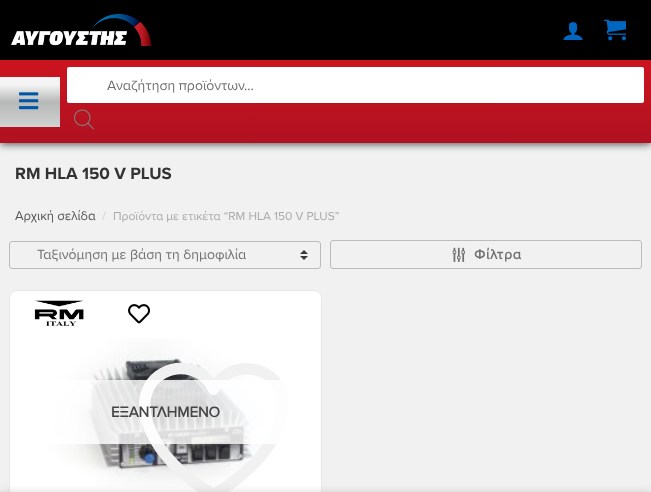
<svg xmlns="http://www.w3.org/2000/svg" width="651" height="492">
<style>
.a{font:14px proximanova;fill:#707070}
.b{font:bold 17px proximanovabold;fill:#333}
.c{font:13px proximanova;fill:#545454}
.d{font:bold 12px proximanova;fill:#d8d8d8}
.e{font:12px proximanova;fill:#a9a9a9}
.f{font:bold 14px proximanova;letter-spacing:0.75px;fill:#707070}
.g{font:bold 15px proximanova;fill:#454545}
</style>
<defs>
<linearGradient id="g1" gradientUnits="userSpaceOnUse" x1="326" y1="60" x2="326" y2="143"><stop offset="0" stop-color="#cc141f"/><stop offset="1" stop-color="#b01121"/></linearGradient>
<linearGradient id="g2" gradientUnits="userSpaceOnUse" x1="30" y1="77" x2="30" y2="127"><stop offset="0" stop-color="#f3f3f3"/><stop offset="0.15" stop-color="#f4f4f4"/><stop offset="0.5" stop-color="#b7b8b8"/><stop offset="1" stop-color="#d0d1d1"/></linearGradient>
</defs>
<rect width="100%" height="100%" fill="#f1f1f1"/>
<path fill="#000000b3" filter="blur(4px)" d="M0 1h651v143H0z"/>
<path fill="#000" d="M0 0h651v60H0z"/>
<image href="1.png" x="11" y="14" width="140" height="32"/>
<image href="2.png" x="563" y="22" width="20" height="18"/>
<image href="3.png" x="604" y="19" width="22" height="22"/>
<path fill="url(#g1)" d="M0 60h651v83H0z"/>
<path fill="url(#g2)" d="M0 77h60v50H0z"/>
<image href="4.png" x="19" y="92" width="20" height="18"/>
<rect fill="#fff" x="67" y="67" width="577" height="36" rx="2"/>
<image href="5.png" x="74" y="109" width="20" height="21"/>
<rect fill="none" stroke="#bbb" x="330.5" y="240.5" width="311" height="28" rx="2.5"/>
<image href="6.png" x="452" y="247" width="13" height="15"/>
<image href="7.png" x="300" y="250" width="8" height="10"/>
<rect fill="none" stroke="#bbb" x="9.5" y="241.5" width="311" height="27" rx="2.5"/>
<rect fill="#fff" stroke="#e8e8e8" x="9.5" y="290.5" width="312" height="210" rx="7.5"/>
<image href="8.png" x="34" y="300" width="50" height="26"/>
<image href="9.png" x="128" y="304" width="22" height="20"/>
<image href="10.png" x="48" y="338" width="223" height="150"/>
<path fill="none" stroke="#f1f1f1" stroke-width="11.4" stroke-linecap="round" stroke-linejoin="round" d="M282.5 403c0-38-54-47-69-13.5c-18.5-42-97-18.5-58 51c12.5 22 36 42 58 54c0 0 69-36.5 69-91.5z"/>
<path fill="#ffffffcf" d="M48 380h240v64H48z"/>
<path fill="#00000024" filter="blur(4.5px)" d="M0 492h651v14H0z"/>
<text class="a" x="107" y="90">Αναζήτηση προϊόντων...</text>
<text class="b" x="15" y="179">RM HLA 150 V PLUS</text>
<text class="c" x="15" y="220">Αρχική σελίδα</text>
<text class="d" x="102" y="220">/</text>
<text class="e" x="113" y="220">Προϊόντα με ετικέτα “RM HLA 150 V PLUS”</text>
<text class="f" x="474" y="259">Φίλτρα</text>
<text class="a" x="37" y="259">Ταξινόμηση με βάση τη δημοφιλία</text>
<text class="g" x="111" y="417">ΕΞΑΝΤΛΗΜΕΝΟ</text>
</svg>
